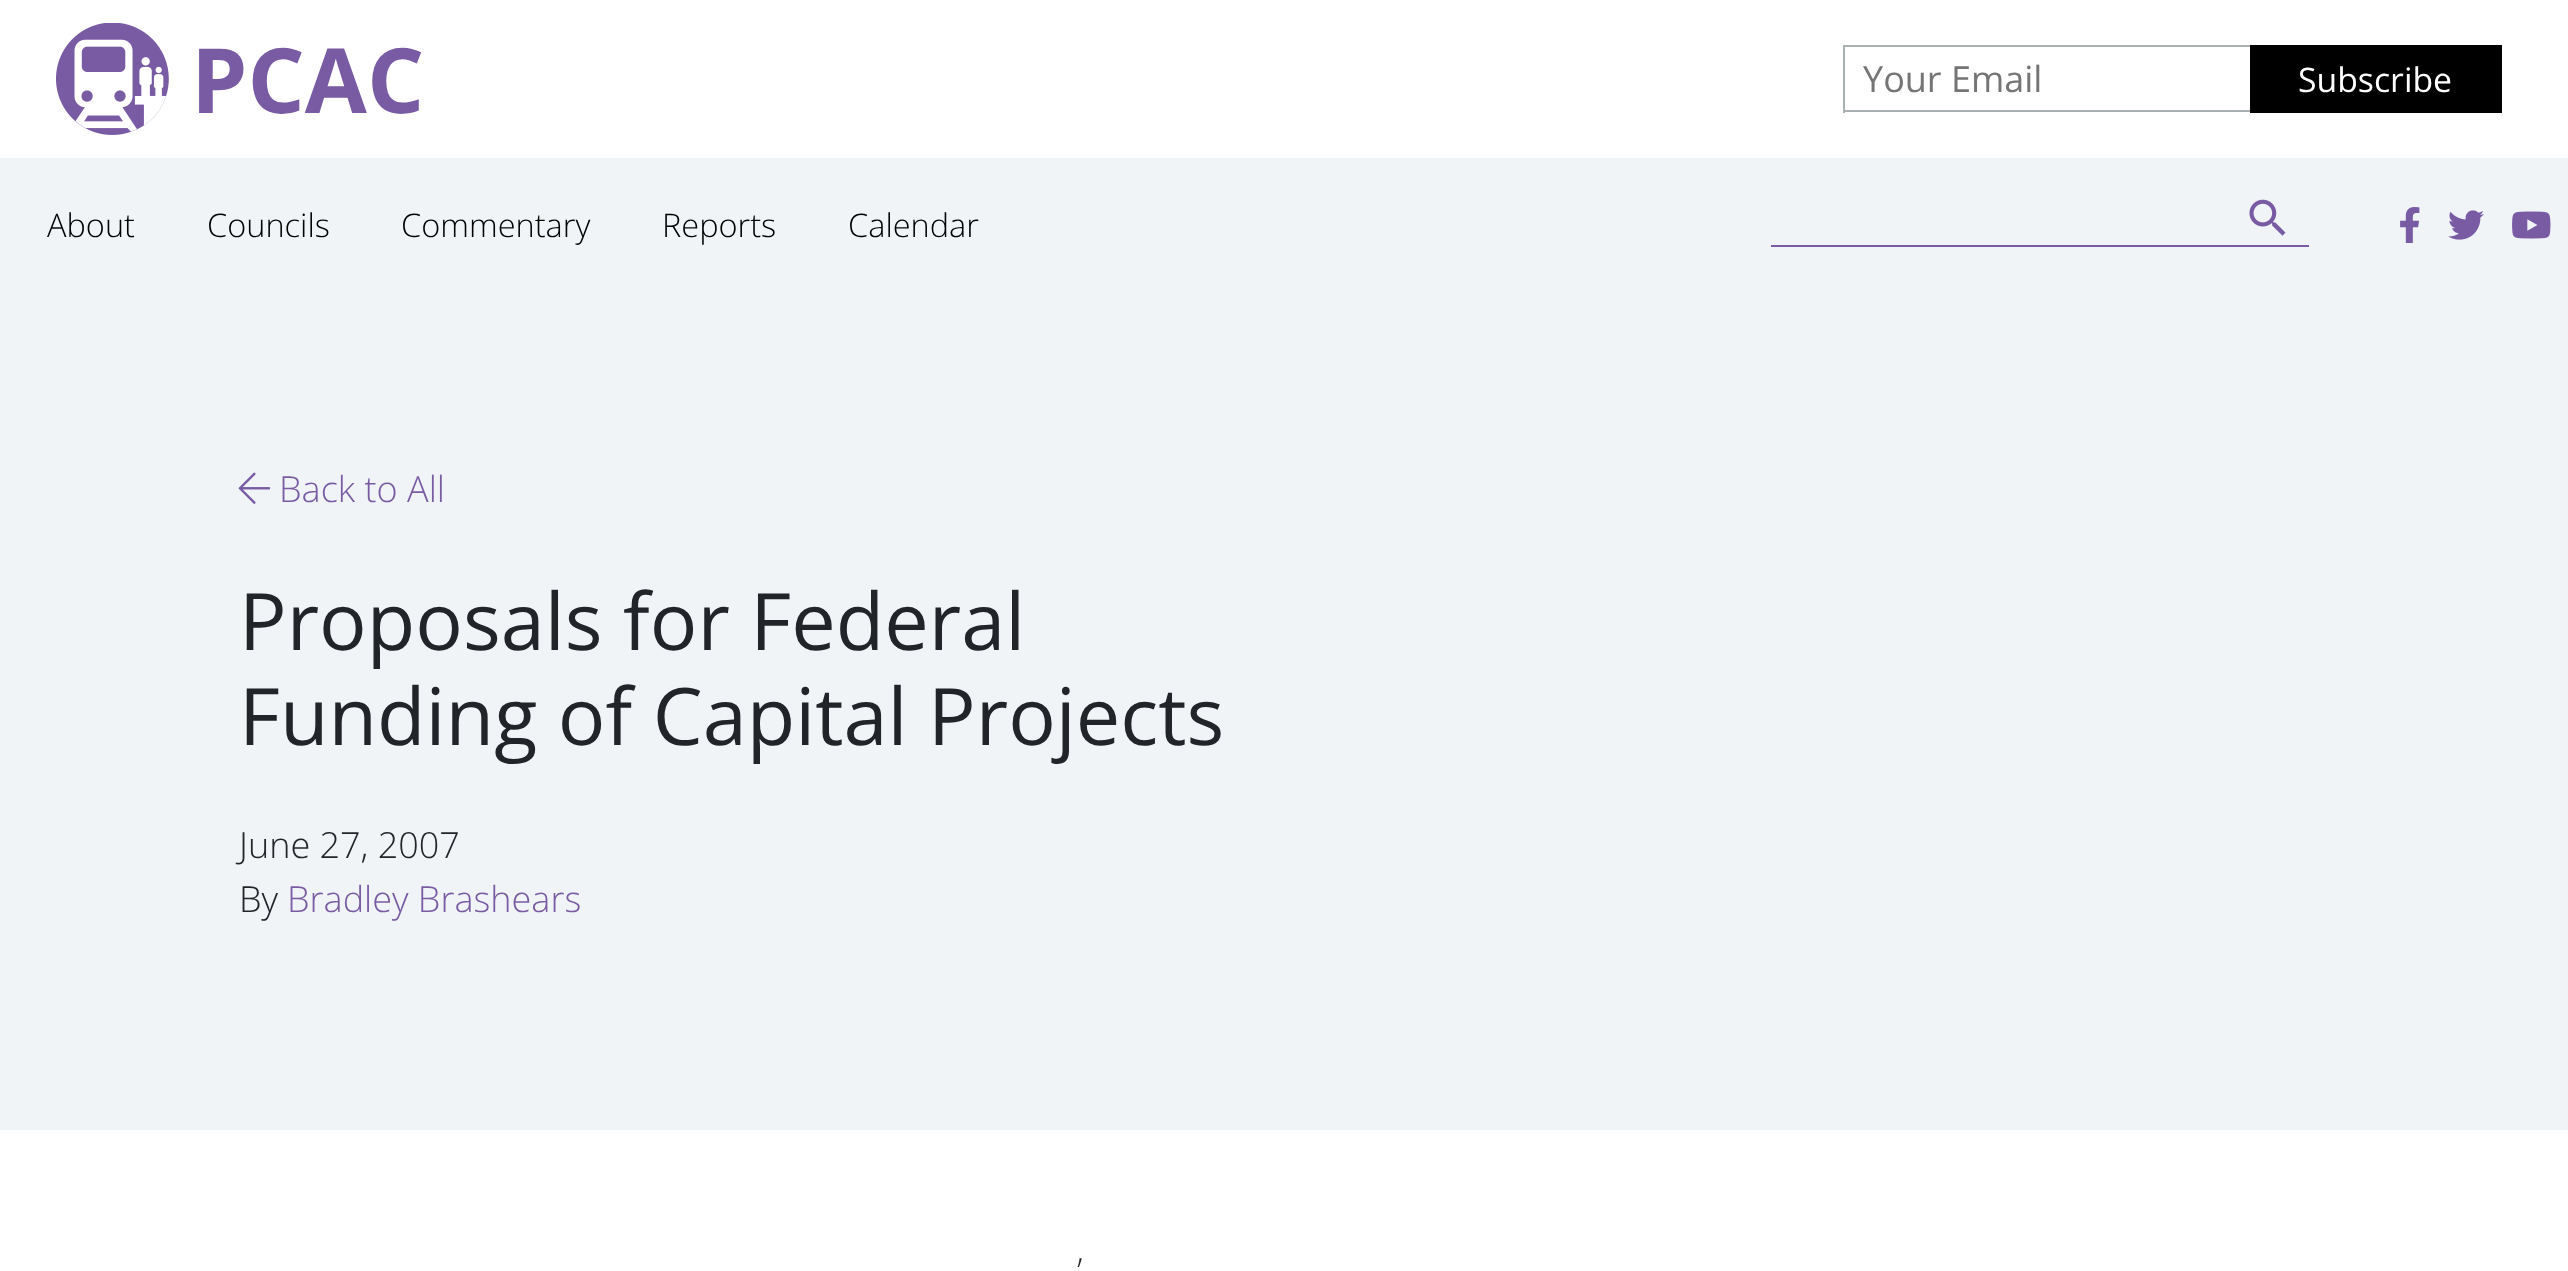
<svg xmlns="http://www.w3.org/2000/svg" width="2568" height="1271">
<style>
.a{font:bold 90px Open Sans;fill:#795ba4}
.b{font:36px Open Sans;fill:#757575}
.c{font:33.75px Open Sans;fill:#fff}
.d{font:300 32.5px Open Sans;fill:#000}
.e{font:300 36px Open Sans;fill:#795ba4}
.f{font:79.25px Open Sans;fill:#212529}
.g{font:300 36px Open Sans;fill:#212529}
</style>
<rect width="100%" height="100%" fill="#fff"/>
<image href="1.png" x="56" y="23" width="113" height="112"/>
<path fill="#abb0b2" d="M1843 45h407v2H1843z"/>
<path fill="#abb0b2" d="M1843 110h407v2H1843z"/>
<path fill="#abb0b2" d="M1843 45h2v68H1843z"/>
<path fill="#000" d="M2250 45h252v68H2250z"/>
<path fill="#f0f4f6" d="M0 158h2568v972H0z"/>
<path fill="#795ba4" d="M1771 245h538v2H1771z"/>
<image href="2.png" x="2249" y="199" width="37" height="37"/>
<image href="3.png" x="2400" y="207" width="20" height="36"/>
<image href="4.png" x="2448" y="210" width="36" height="30"/>
<image href="5.png" x="2512" y="211" width="39" height="28"/>
<image href="6.png" x="238" y="472" width="33" height="32"/>
<text class="a" x="191" y="113">PCAC</text>
<text class="b" x="1863" y="92">Your Email</text>
<text class="c" x="2298" y="92">Subscribe</text>
<text class="d" x="47" y="237">About</text>
<text class="d" x="207" y="237">Councils</text>
<text class="d" x="401" y="237">Commentary</text>
<text class="d" x="662" y="237">Reports</text>
<text class="d" x="848" y="237">Calendar</text>
<text class="e" x="279" y="502">Back to All</text>
<text class="f" x="239" y="650">Proposals for Federal</text>
<text class="f" x="239" y="745">Funding of Capital Projects</text>
<text class="g" x="239" y="858">June 27, 2007</text>
<text class="g" x="239" y="912">By</text>
<text class="e" x="287" y="912">Bradley Brashears</text>
<text class="g" x="1077" y="1284">’</text>
</svg>
